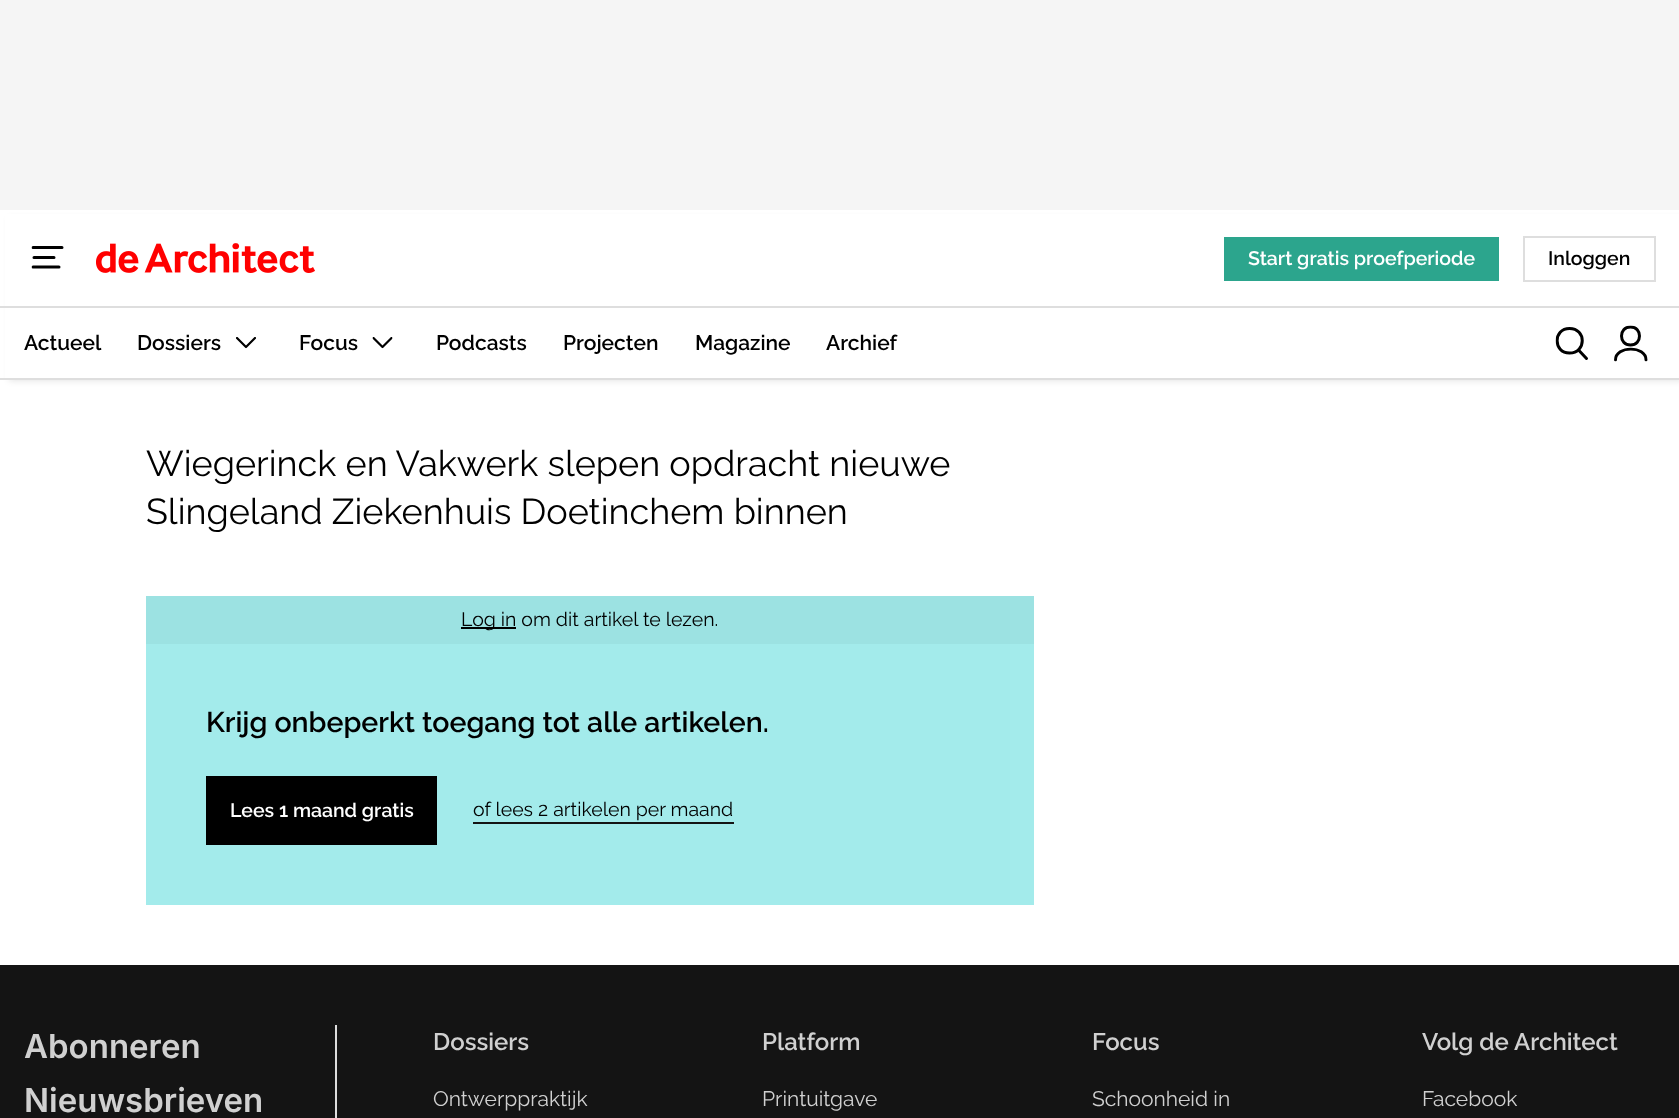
<svg xmlns="http://www.w3.org/2000/svg" width="1679" height="1118">
<style>
.a{font:600 19.5px Raleway;fill:#fff}
.b{font:600 19.5px Raleway;fill:#000}
.c{font:600 21px Raleway;fill:#000}
.d{font:36px Raleway;fill:#000}
.e{font:19.5px Raleway;fill:#000}
.f{font:600 28.5px Raleway;fill:#000}
.g{font:600 33px Inter;fill:#d0d0d0}
.h{font:600 24px Raleway;fill:#d0d0d0}
.i{font:21px Raleway;fill:#d0d0d0}
</style>
<defs>
<clipPath id="clip1"><path d="M31.5 246h33v24h-33z"/></clipPath>
<clipPath id="clip2"><path d="M236 337h20v11.5h-20z"/></clipPath>
<clipPath id="clip3"><path d="M372.5 337h20v11.5h-20z"/></clipPath>
<clipPath id="clip4"><path d="M1555.5 327h33v33h-33z"/></clipPath>
<clipPath id="clip5"><path d="M1614 325.5h34.5v36h-34.5z"/></clipPath>
</defs>
<rect width="100%" height="100%" fill="#fff"/>
<path fill="#f5f5f5" d="M0 0h1679v210H0z"/>
<path fill="#0000001a" filter="blur(3px)" d="M9 218h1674v163H9z"/>
<path fill="#fff" d="M5 214h1674v164H5z"/>
<path fill="#dedede" d="M0 378h1679v2H0z"/>
<g clip-path="url(#clip1)">
<path fill="none" stroke="#000" stroke-width="3" stroke-linecap="round" stroke-linejoin="round" d="M33 247.5h29m-28 10h20m-21 9.5h26"/>
</g>
<image href="1.png" x="96" y="243" width="219" height="30"/>
<path fill="#2ca58d" d="M1224 237h275v44H1224z"/>
<path fill="none" stroke="#dedede" stroke-width="2" d="M1524 237h131v44H1524z"/>
<path fill="#dedede" d="M0 306h1679v2H0z"/>
<g clip-path="url(#clip2)">
<path fill="none" stroke="#000" stroke-width="2.2" stroke-linecap="round" stroke-linejoin="round" d="M255 338l-9 9l-9-9"/>
</g>
<g clip-path="url(#clip3)">
<path fill="none" stroke="#000" stroke-width="2.2" stroke-linecap="round" stroke-linejoin="round" d="M391.5 338l-9 9l-9-9"/>
</g>
<g clip-path="url(#clip4)">
<path fill="none" stroke="#000" stroke-width="3" stroke-linecap="round" stroke-linejoin="round" d="M1569.5 353c17 0 17-24.5 0-24.5c-16.5 0-16.5 24.5 0 24.5"/>
</g>
<path fill="none" stroke="#000" stroke-width="3" stroke-linecap="round" stroke-linejoin="round" d="M1578.5 350l8 8.5"/>
<g clip-path="url(#clip5)">
<path fill="none" stroke="#000" stroke-width="3" stroke-linecap="round" stroke-linejoin="round" d="M1630.5 345c12 0 12-18 0-18c-12 0-12 18 0 18"/>
<path fill="none" stroke="#000" stroke-width="2.9" stroke-linecap="round" stroke-linejoin="round" d="M1615.5 360c0-14.5 30.5-14.5 30.5 0"/>
</g>
<path fill="#9ce2e2" d="M146 596h888v48H146z"/>
<path fill="#000" d="M461 627h55v2H461z"/>
<path fill="#a3ebeb" d="M146 644h888v261H146z"/>
<path fill="#000" d="M206 776h231v69H206z"/>
<path fill="#141414" d="M473 822h261v2H473z"/>
<path fill="#141414" d="M0 965h1679v153H0z"/>
<path fill="#dedede" d="M335 1025h2v93H335z"/>
<text class="a" x="1248" y="265">Start gratis proefperiode</text>
<text class="b" x="1548" y="265">Inloggen</text>
<text class="c" x="24" y="350">Actueel</text>
<text class="c" x="137" y="350">Dossiers</text>
<text class="c" x="299" y="350">Focus</text>
<text class="c" x="436" y="350">Podcasts</text>
<text class="c" x="563" y="350">Projecten</text>
<text class="c" x="695" y="350">Magazine</text>
<text class="c" x="826" y="350">Archief</text>
<text class="d" x="146" y="476">Wiegerinck en Vakwerk slepen opdracht nieuwe</text>
<text class="d" x="146" y="524">Slingeland Ziekenhuis Doetinchem binnen</text>
<text class="e" x="461" y="626">Log in om dit artikel te lezen.</text>
<text class="f" x="206" y="732">Krijg onbeperkt toegang tot alle artikelen.</text>
<text class="a" x="230" y="817">Lees 1 maand gratis</text>
<text class="e" x="473" y="816">of lees 2 artikelen per maand</text>
<text class="g" x="24" y="1058">Abonneren</text>
<text class="g" x="24" y="1112">Nieuwsbrieven</text>
<text class="h" x="433" y="1050">Dossiers</text>
<text class="i" x="433" y="1106">Ontwerppraktijk</text>
<text class="h" x="762" y="1050">Platform</text>
<text class="i" x="762" y="1106">Printuitgave</text>
<text class="h" x="1092" y="1050">Focus</text>
<text class="i" x="1092" y="1106">Schoonheid in</text>
<text class="h" x="1422" y="1050">Volg de Architect</text>
<text class="i" x="1422" y="1106">Facebook</text>
</svg>
